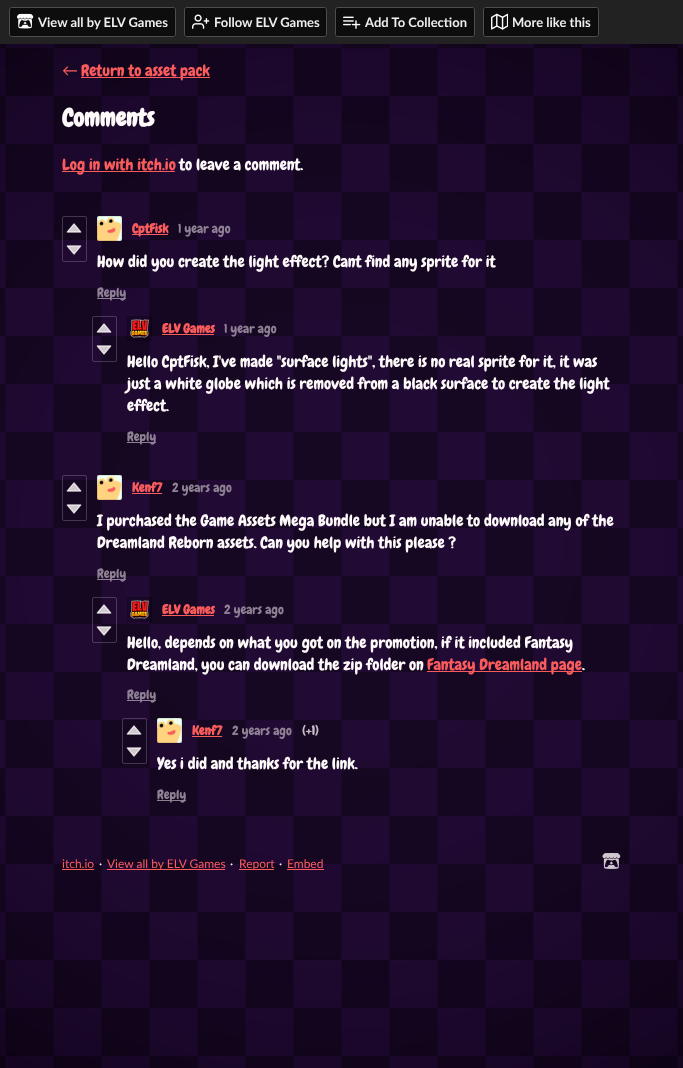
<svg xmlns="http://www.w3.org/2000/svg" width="683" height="1068">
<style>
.a{font:bold 13px Lato;fill:#eee}
.b{font:16px Lato;fill:#fa5c5c}
.c{font:16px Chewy;fill:#fa5c5c}
.d{font:bold 24px Chewy;fill:#fefafa}
.e{font:16px Chewy;fill:#fefafa}
.f{font:bold 13px Chewy;fill:#fa5c5c}
.g{font:13px Chewy;fill:#8d8193}
.h{font:bold 13px Chewy;fill:#c4bdc4}
.i{font:12px Lato;fill:#fa5c5c}
.j{font:12px Lato;fill:#fefafa}
</style>
<rect width="100%" height="100%" fill="#fff"/>
<path fill="#222" d="M0 0h683v44H0z"/>
<rect fill="none" stroke="#4e4e4e" x="9.5" y="7.5" width="166" height="29" rx="2.5"/>
<rect fill="#00000099" x="10" y="8" width="165" height="28" rx="2"/>
<rect fill="none" stroke="#0a0a0a80" x="10.5" y="8.5" width="164" height="27" rx="1.5"/>
<image href="1.png" x="17" y="13" width="17" height="16"/>
<rect fill="none" stroke="#4e4e4e" x="184.5" y="7.5" width="142" height="29" rx="2.5"/>
<rect fill="#00000099" x="185" y="8" width="141" height="28" rx="2"/>
<rect fill="none" stroke="#0a0a0a80" x="185.5" y="8.5" width="140" height="27" rx="1.5"/>
<image href="2.png" x="192" y="14" width="18" height="15"/>
<rect fill="none" stroke="#4e4e4e" x="335.5" y="7.5" width="139" height="29" rx="2.5"/>
<rect fill="#00000099" x="336" y="8" width="138" height="28" rx="2"/>
<rect fill="none" stroke="#0a0a0a80" x="336.5" y="8.5" width="137" height="27" rx="1.5"/>
<image href="3.png" x="343" y="16" width="18" height="13"/>
<rect fill="none" stroke="#4e4e4e" x="483.5" y="7.5" width="115" height="29" rx="2.5"/>
<rect fill="#00000099" x="484" y="8" width="114" height="28" rx="2"/>
<rect fill="none" stroke="#0a0a0a80" x="484.5" y="8.5" width="113" height="27" rx="1.5"/>
<image href="4.png" x="491" y="13" width="17" height="17"/>
<image href="5.png" x="0" y="44" width="683" height="1024"/>
<path fill="#fa5c5c" d="M81 77h129v1H81z"/>
<path fill="#fa5c5c" d="M62 171h113v1H62z"/>
<rect fill="none" stroke="#fefafa33" x="62.5" y="216.5" width="24" height="45" rx="1.5"/>
<image href="6.png" x="66" y="223" width="16" height="10"/>
<image href="7.png" x="66" y="245" width="16" height="10"/>
<image href="8.png" x="97" y="216" width="25" height="25"/>
<rect fill="none" stroke="#0000001a" x="97.5" y="216.5" width="24" height="24" rx="1.5"/>
<path fill="#fa5c5c" d="M132 234h36v1H132z"/>
<path fill="#fefafa80" d="M97 298h29v1H97z"/>
<rect fill="none" stroke="#fefafa33" x="92.5" y="316.5" width="24" height="45" rx="1.5"/>
<image href="9.png" x="96" y="323" width="16" height="10"/>
<image href="10.png" x="96" y="345" width="16" height="10"/>
<rect fill="#00000033" x="127" y="316" width="25" height="25" rx="2"/>
<image href="11.png" x="130" y="319" width="19" height="19"/>
<rect fill="none" stroke="#0000001a" x="127.5" y="316.5" width="24" height="24" rx="1.5"/>
<path fill="#fa5c5c" d="M162 334h52v1H162z"/>
<path fill="#fefafa80" d="M127 442h29v1H127z"/>
<rect fill="none" stroke="#fefafa33" x="62.5" y="475.5" width="24" height="45" rx="1.5"/>
<image href="12.png" x="66" y="482" width="16" height="10"/>
<image href="13.png" x="66" y="504" width="16" height="10"/>
<image href="14.png" x="97" y="475" width="25" height="25"/>
<rect fill="none" stroke="#0000001a" x="97.5" y="475.5" width="24" height="24" rx="1.5"/>
<path fill="#fa5c5c" d="M132 493h30v1H132z"/>
<path fill="#fefafa80" d="M97 579h29v1H97z"/>
<rect fill="none" stroke="#fefafa33" x="92.5" y="597.5" width="24" height="45" rx="1.5"/>
<image href="15.png" x="96" y="604" width="16" height="10"/>
<image href="16.png" x="96" y="626" width="16" height="10"/>
<rect fill="#00000033" x="127" y="597" width="25" height="25" rx="2"/>
<image href="17.png" x="130" y="600" width="19" height="19"/>
<rect fill="none" stroke="#0000001a" x="127.5" y="597.5" width="24" height="24" rx="1.5"/>
<path fill="#fa5c5c" d="M162 615h52v1H162z"/>
<path fill="#fa5c5c" d="M427 671h155v1H427z"/>
<path fill="#fefafa80" d="M127 700h29v1H127z"/>
<rect fill="none" stroke="#fefafa33" x="122.5" y="718.5" width="24" height="45" rx="1.5"/>
<image href="12.png" x="126" y="725" width="16" height="10"/>
<image href="13.png" x="126" y="747" width="16" height="10"/>
<image href="18.png" x="157" y="718" width="25" height="25"/>
<rect fill="none" stroke="#0000001a" x="157.5" y="718.5" width="24" height="24" rx="1.5"/>
<path fill="#fa5c5c" d="M192 736h30v1H192z"/>
<path fill="#8a808e" d="M157 800h29v1H157z"/>
<path fill="#fa5c5c" d="M62 869h32v1H62z"/>
<path fill="#fa5c5c" d="M107 869h118v1H107z"/>
<path fill="#fa5c5c" d="M239 869h35v1H239z"/>
<path fill="#fa5c5c" d="M287 869h37v1H287z"/>
<image href="19.png" x="602" y="853" width="19" height="16"/>
<text class="a" x="38" y="27">View all by ELV Games</text>
<text class="a" x="214" y="27">Follow ELV Games</text>
<text class="a" x="365" y="27">Add To Collection</text>
<text class="a" x="512" y="27">More like this</text>
<text class="b" x="62" y="76">←</text>
<text class="c" x="81" y="76">Return to asset pack</text>
<text class="d" x="62" y="126">Comments</text>
<text class="c" x="62" y="170">Log in with itch.io</text>
<text class="e" x="179" y="170">to leave a comment.</text>
<text class="f" x="132" y="233">CptFisk</text>
<text class="g" x="178" y="233">1 year ago</text>
<text class="e" x="97" y="267">How did you create the light effect? Cant find any sprite for it</text>
<text class="g" x="97" y="297">Reply</text>
<text class="f" x="162" y="333">ELV Games</text>
<text class="g" x="224" y="333">1 year ago</text>
<text class="e" x="127" y="367">Hello CptFisk, I've made "surface lights", there is no real sprite for it, it was</text>
<text class="e" x="127" y="389">just a white globe which is removed from a black surface to create the light</text>
<text class="e" x="127" y="411">effect.</text>
<text class="g" x="127" y="441">Reply</text>
<text class="f" x="132" y="492">Kenf7</text>
<text class="g" x="172" y="492">2 years ago</text>
<text class="e" x="97" y="526">I purchased the Game Assets Mega Bundle but I am unable to download any of the</text>
<text class="e" x="97" y="548">Dreamland Reborn assets. Can you help with this please ?</text>
<text class="g" x="97" y="578">Reply</text>
<text class="f" x="162" y="614">ELV Games</text>
<text class="g" x="224" y="614">2 years ago</text>
<text class="e" x="127" y="648">Hello, depends on what you got on the promotion, if it included Fantasy</text>
<text class="e" x="127" y="670">Dreamland, you can download the zip folder on</text>
<text class="c" x="427" y="670">Fantasy Dreamland page</text>
<text class="e" x="582" y="670">.</text>
<text class="g" x="127" y="699">Reply</text>
<text class="f" x="192" y="735">Kenf7</text>
<text class="g" x="232" y="735">2 years ago</text>
<text class="h" x="302" y="735">(+1)</text>
<text class="e" x="157" y="769">Yes i did and thanks for the link.</text>
<text class="g" x="157" y="799">Reply</text>
<text class="i" x="62" y="868">itch.io</text>
<text class="j" x="99" y="868">·</text>
<text class="i" x="107" y="868">View all by ELV Games</text>
<text class="j" x="230" y="868">·</text>
<text class="i" x="239" y="868">Report</text>
<text class="j" x="279" y="868">·</text>
<text class="i" x="287" y="868">Embed</text>
</svg>
